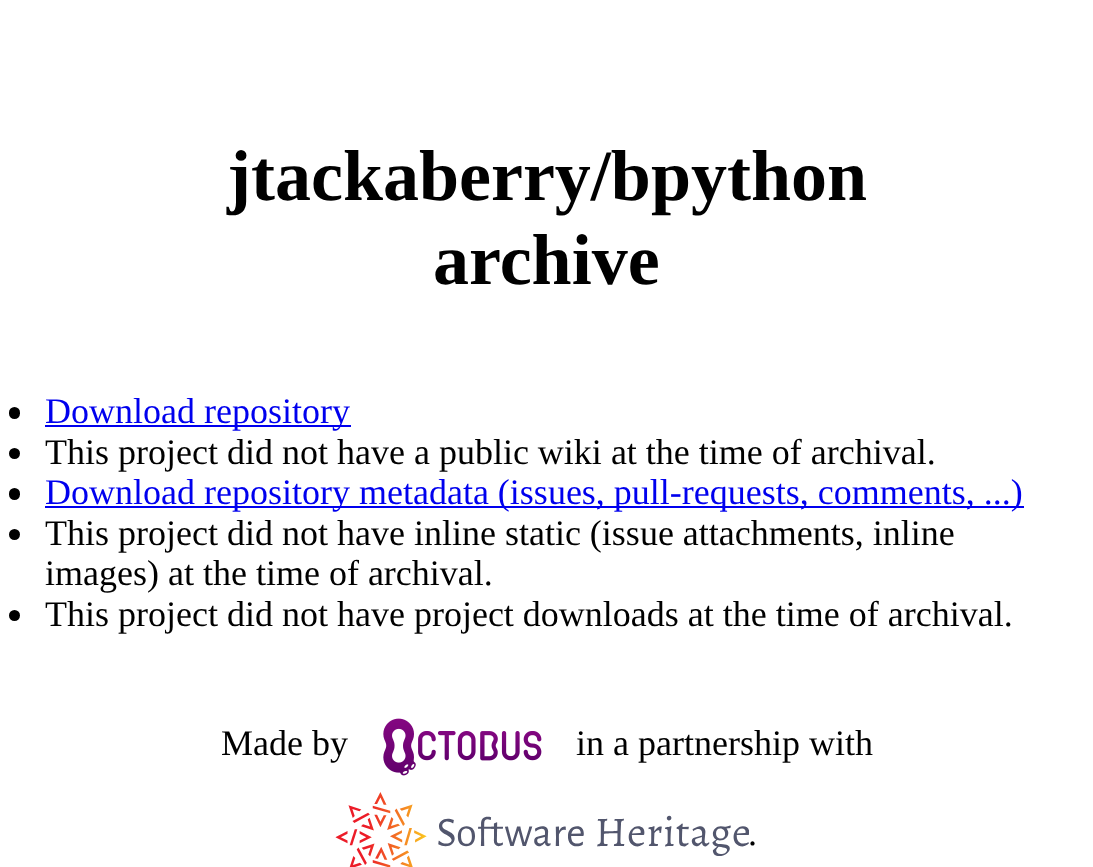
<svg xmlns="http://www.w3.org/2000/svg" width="1093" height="867">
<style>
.a{font:bold 72px Liberation Serif;fill:#000}
.b{font:36px Liberation Serif;fill:#00e}
.c{font:36px Liberation Serif;fill:#000}
</style>
<rect width="100%" height="100%" fill="#fff"/>
<rect fill="#000" x="9" y="407" width="11" height="12" rx="5.5"/>
<path fill="#00e" d="M45 425h306v2H45z"/>
<circle fill="#000" cx="14.5" cy="453.5" r="5.5"/>
<rect fill="#000" x="9" y="488" width="11" height="12" rx="5.5"/>
<path fill="#00e" d="M45 506h979v2H45z"/>
<circle fill="#000" cx="14.5" cy="534.5" r="5.5"/>
<circle fill="#000" cx="14.5" cy="615.5" r="5.5"/>
<image href="1.png" x="383" y="718" width="159" height="58"/>
<image href="2.png" x="335" y="792" width="414" height="75"/>
<text class="a" x="227" y="200">jtackaberry/bpython</text>
<text class="a" x="433" y="284">archive</text>
<text class="b" x="45" y="423">Download repository</text>
<text class="c" x="45" y="464">This project did not have a public wiki at the time of archival.</text>
<text class="b" x="45" y="504">Download repository metadata (issues, pull-requests, comments, ...)</text>
<text class="c" x="45" y="545">This project did not have inline static (issue attachments, inline</text>
<text class="c" x="45" y="585">images) at the time of archival.</text>
<text class="c" x="45" y="626">This project did not have project downloads at the time of archival.</text>
<text class="c" x="221" y="755">Made by</text>
<text class="c" x="576" y="755">in a partnership with</text>
<text class="c" x="748" y="845">.</text>
</svg>
